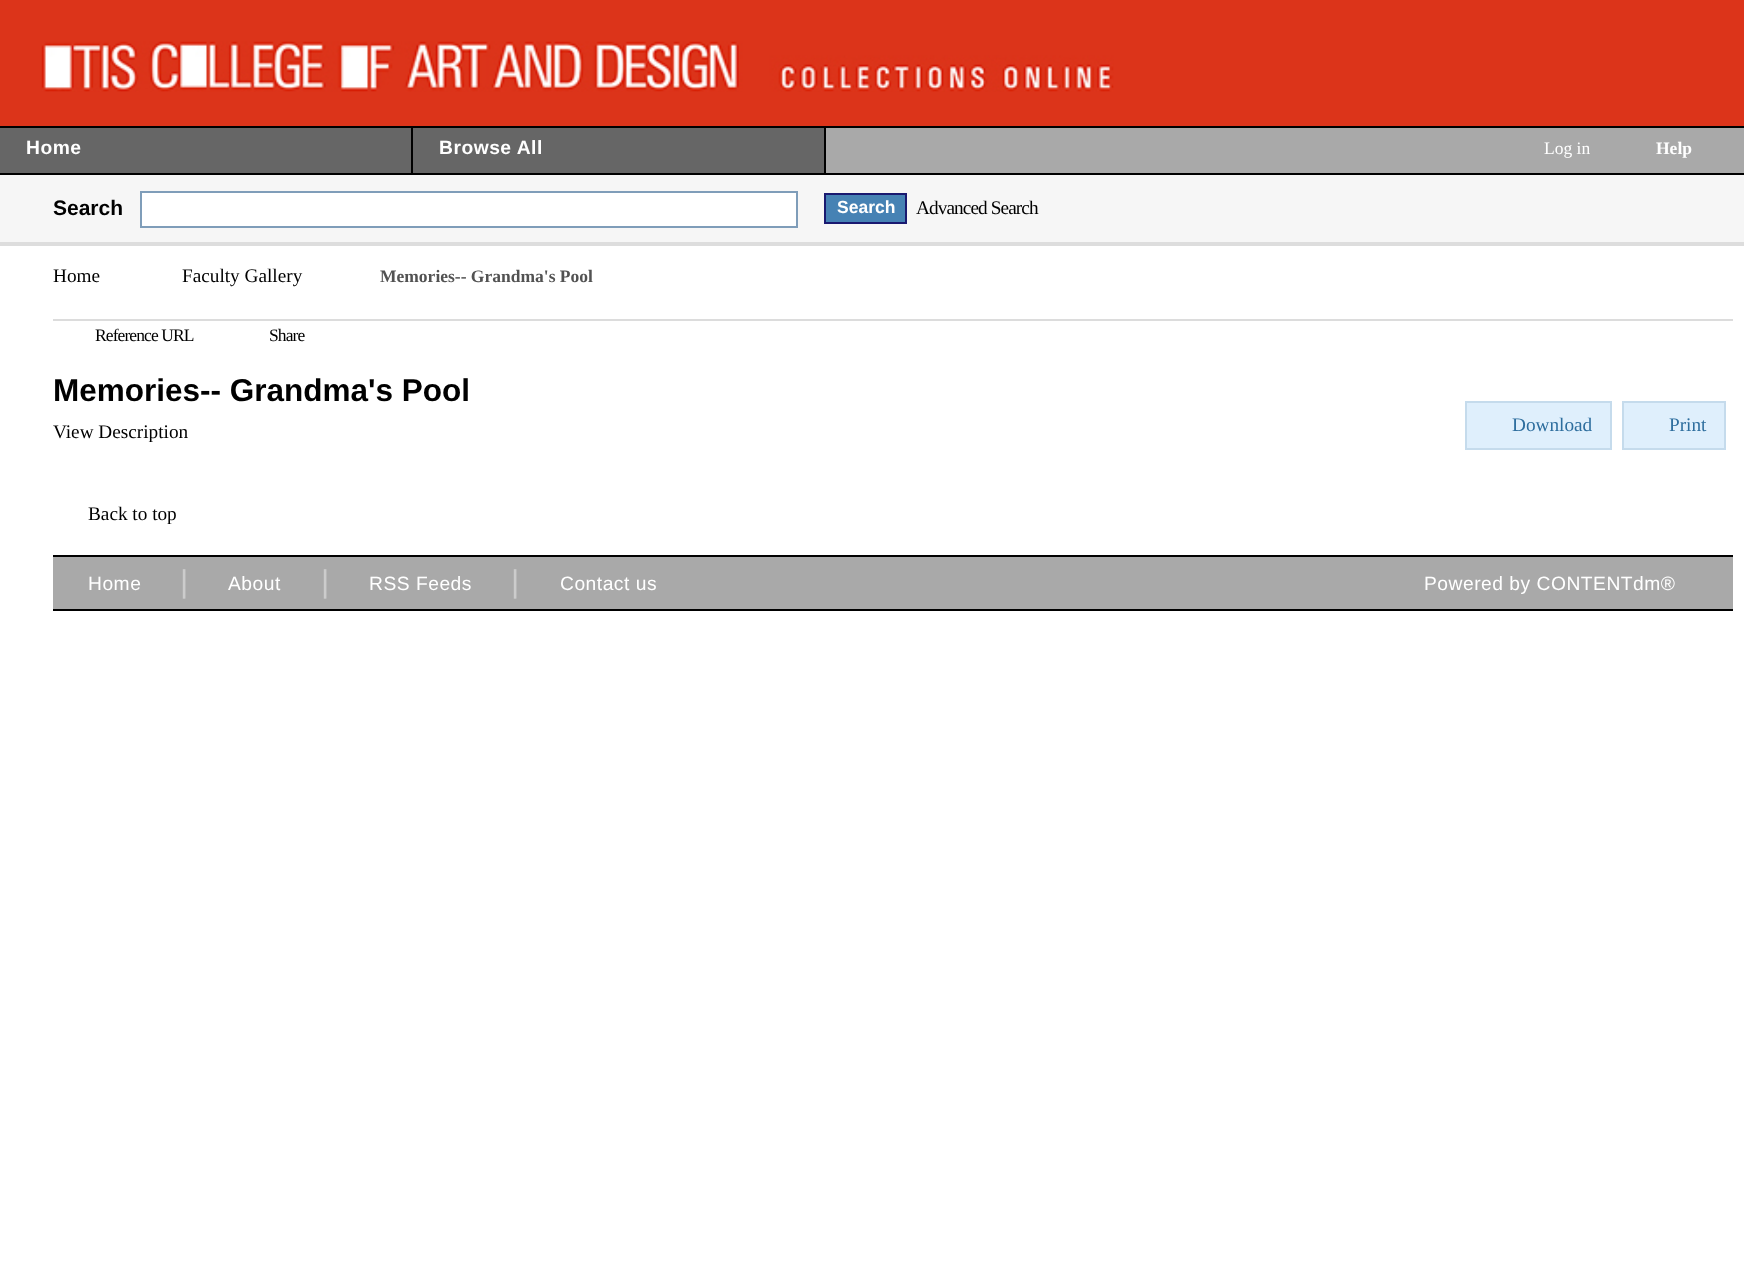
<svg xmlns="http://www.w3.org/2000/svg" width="1744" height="1285">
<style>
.a{font:bold 19.25px Liberation Sans;letter-spacing:0.5px;fill:#fff}
.b{font:17.5px Liberation Serif;fill:#fff}
.c{font:bold 17.5px Liberation Serif;fill:#fff}
.d{font:bold 21px Liberation Sans;fill:#000}
.e{font:bold 17.5px Liberation Sans;fill:#fff}
.f{font:19.25px Liberation Serif;letter-spacing:-0.9px;fill:#000}
.g{font:19.25px Liberation Serif;fill:#000}
.h{font:bold 17.5px Liberation Serif;fill:#525252}
.i{font:17.5px Liberation Serif;letter-spacing:-0.9px;fill:#000}
.j{font:bold 31.5px Liberation Sans;fill:#000}
.k{font:19.25px Liberation Serif;fill:#2e6e9e}
.l{font:19.25px Liberation Sans;letter-spacing:0.5px;fill:#fff}
.m{font:31.5px Liberation Sans;fill:#ccc}
</style>
<rect width="100%" height="100%" fill="#fff"/>
<path fill="#dc341a" d="M0 0h1744v126H0z"/>
<image href="1.png" x="41" y="41" width="1073" height="51"/>
<path fill="#a9a9a9" d="M826 128h918v45H826z"/>
<path fill="#000" d="M0 126h1744v2H0z"/>
<path fill="#000" d="M0 173h1744v2H0z"/>
<path fill="#666" d="M0 128h411v45H0z"/>
<path fill="#000" d="M411 128h2v45H411z"/>
<path fill="#666" d="M413 128h411v45H413z"/>
<path fill="#000" d="M824 128h2v45H824z"/>
<path fill="#f6f6f6" d="M0 175h1744v67H0z"/>
<path fill="#ddd" d="M0 242h1744v4H0z"/>
<path fill="#fff" stroke="#7f9db9" stroke-width="2" d="M141 192h656v35H141z"/>
<path fill="#4682b4" stroke="#191970" stroke-width="2" d="M825 194h81v29H825z"/>
<path fill="#dcdcdc" d="M53 319h1680v2H53z"/>
<path fill="#dfeffc" stroke="#c5dbec" stroke-width="2" d="M1466 402h145v47H1466z"/>
<path fill="#dfeffc" stroke="#c5dbec" stroke-width="2" d="M1623 402h102v47H1623z"/>
<path fill="#a9a9a9" d="M53 557h1680v52H53z"/>
<path fill="#000" d="M53 555h1680v2H53z"/>
<path fill="#000" d="M53 609h1680v2H53z"/>
<text class="a" x="26" y="154">Home</text>
<text class="a" x="439" y="154">Browse All</text>
<text class="b" x="1544" y="154">Log in</text>
<text class="c" x="1656" y="154">Help</text>
<text class="d" x="53" y="215">Search</text>
<text class="e" x="837" y="213">Search</text>
<text class="f" x="916" y="214">Advanced Search</text>
<text class="g" x="53" y="282">Home</text>
<text class="g" x="182" y="282">Faculty Gallery</text>
<text class="h" x="380" y="282">Memories-- Grandma's Pool</text>
<text class="i" x="95" y="341">Reference URL</text>
<text class="i" x="269" y="341">Share</text>
<text class="j" x="53" y="401">Memories-- Grandma's Pool</text>
<text class="g" x="53" y="438">View Description</text>
<text class="k" x="1512" y="431">Download</text>
<text class="k" x="1669" y="431">Print</text>
<text class="g" x="88" y="520">Back to top</text>
<text class="l" x="88" y="590">Home</text>
<text class="m" x="180" y="592">|</text>
<text class="l" x="228" y="590">About</text>
<text class="m" x="321" y="592">|</text>
<text class="l" x="369" y="590">RSS Feeds</text>
<text class="m" x="511" y="592">|</text>
<text class="l" x="560" y="590">Contact us</text>
<text class="l" x="1424" y="590">Powered by CONTENTdm®</text>
</svg>
